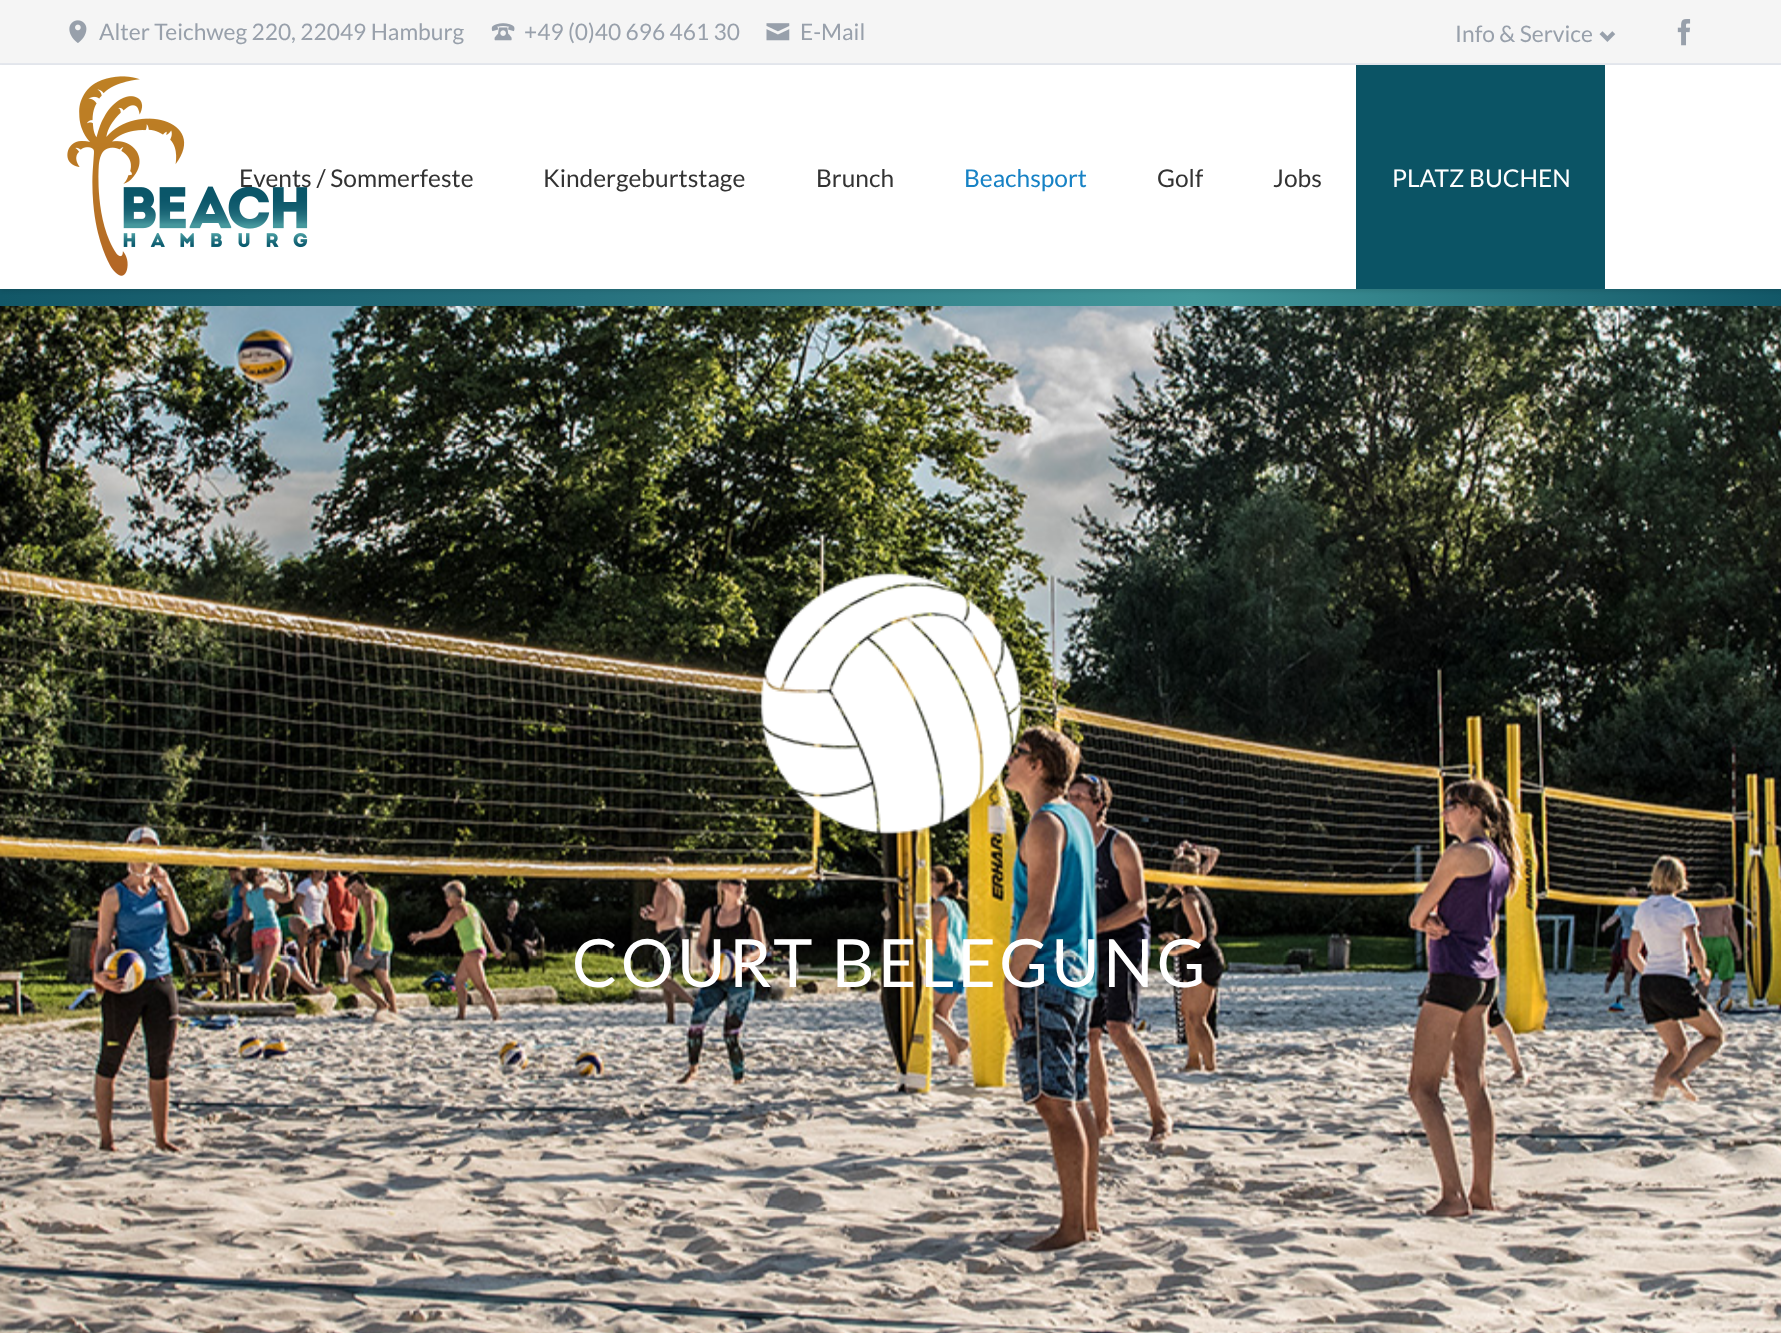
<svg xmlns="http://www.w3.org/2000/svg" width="1781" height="1333">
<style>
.a{font:22.75px Lato;fill:#98a0ab}
.b{font:24.5px Lato;fill:#333}
.c{font:24.5px Lato;fill:#1782c5}
.d{font:24.5px Lato;fill:#fff}
.e{font:66.5px Lato;letter-spacing:3.25px;fill:#fff}
</style>
<defs>
<linearGradient id="g1" gradientUnits="userSpaceOnUse" x1="0" y1="298" x2="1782" y2="297"><stop offset="0" stop-color="#125767"/><stop offset="0.33" stop-color="#27717e"/><stop offset="0.67" stop-color="#43989b"/><stop offset="1" stop-color="#125767"/></linearGradient>
</defs>
<rect width="100%" height="100%" fill="#fff"/>
<path fill="#f5f5f5" d="M0 0h1781v63H0z"/>
<path fill="#e5e8ee" d="M0 63h1781v2H0z"/>
<image href="1.png" x="69" y="20" width="18" height="23"/>
<image href="2.png" x="491" y="23" width="24" height="18"/>
<image href="3.png" x="766" y="23" width="24" height="18"/>
<image href="4.png" x="1599" y="31" width="17" height="11"/>
<image href="5.png" x="1677" y="19" width="14" height="27"/>
<path fill="url(#g1)" d="M0 289h1781v17H0z"/>
<path fill="#0000001a" filter="blur(2px)" d="M0 67h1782v224H0z"/>
<path fill="#fff" d="M0 65h1781v224H0z"/>
<image href="6.png" x="67" y="76" width="241" height="200"/>
<path fill="#0b5465" d="M1356 65h249v224H1356z"/>
<image href="7.png" x="0" y="306" width="1781" height="1027"/>
<image href="8.png" x="759" y="572" width="263" height="263"/>
<text class="a" x="99" y="40">Alter Teichweg 220, 22049 Hamburg</text>
<text class="a" x="524" y="40">+49 (0)40 696 461 30</text>
<text class="a" x="800" y="40">E-Mail</text>
<text class="a" x="1455" y="42">Info &amp; Service</text>
<text class="b" x="239" y="187">Events / Sommerfeste</text>
<text class="b" x="543" y="187">Kindergeburtstage</text>
<text class="b" x="816" y="187">Brunch</text>
<text class="c" x="964" y="187">Beachsport</text>
<text class="b" x="1157" y="187">Golf</text>
<text class="b" x="1273" y="187">Jobs</text>
<text class="d" x="1392" y="187">PLATZ BUCHEN</text>
<text class="e" x="572" y="987">COURT BELEGUNG</text>
</svg>
